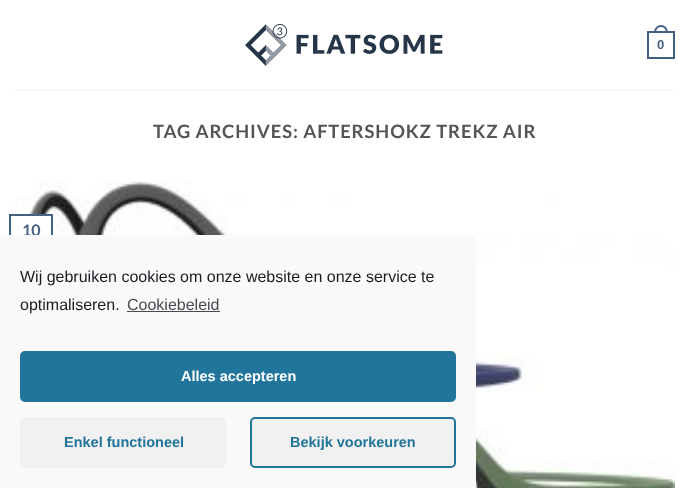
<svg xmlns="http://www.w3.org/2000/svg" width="690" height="488">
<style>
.a{font:bold 13px Liberation Sans;fill:#446084}
.b{font:bold 18.4px Lato;letter-spacing:0.9px;fill:#555}
.c{font:bold 16px Lato;fill:#446084}
.d{font:16px Liberation Sans;fill:#191e23}
.e{font:16px Liberation Sans;fill:#464a4e}
.f{font:bold 14.5px Liberation Sans;fill:#fff}
.g{font:bold 14.5px Liberation Sans;fill:#21759b}
</style>
<rect width="100%" height="100%" fill="#fff"/>
<image href="1.png" x="245" y="24" width="198" height="42"/>
<path fill="none" stroke="#446084" stroke-width="2" d="M648 32h26v26H648z"/>
<path fill="#446084" fill-rule="evenodd" d="M661 25c4.5 0 7 4 7 8h-14c0-4 2.5-8 7-8zm0 2c3.5 0 5 3 5 6h-10c0-3 1.5-6 5-6z"/>
<path fill="#f1f1f1" d="M15 90h660v1H15z"/>
<image href="2.png" x="15" y="181" width="660" height="307"/>
<path fill="#fff" d="M15 216h36v19H15z"/>
<path fill="none" stroke="#446084" stroke-width="2" d="M10 215h42v43H10z"/>
<text class="a" x="657" y="49">0</text>
<text class="b" x="153" y="138">TAG ARCHIVES: AFTERSHOKZ TREKZ AIR</text>
<text class="c" x="22" y="236">10</text>
<path fill="#f9f9f9" d="M0 235h476v253H0z"/>
<text class="d" x="20" y="282">Wij gebruiken cookies om onze website en onze service te</text>
<text class="d" x="20" y="310">optimaliseren.</text>
<text class="e" x="127" y="310">Cookiebeleid</text>
<path fill="#464a4e" d="M127 311h93v1H127z"/>
<rect fill="#21759b" stroke="#21759b" stroke-width="2" x="21" y="352" width="434" height="49" rx="4"/>
<text class="f" x="181" y="381">Alles accepteren</text>
<rect fill="#f1f1f1" x="20" y="417" width="206" height="51" rx="5"/>
<text class="g" x="64" y="447">Enkel functioneel</text>
<rect fill="#f1f1f1" stroke="#21759b" stroke-width="2" x="251" y="418" width="204" height="49" rx="4"/>
<text class="g" x="290" y="447">Bekijk voorkeuren</text>
</svg>
